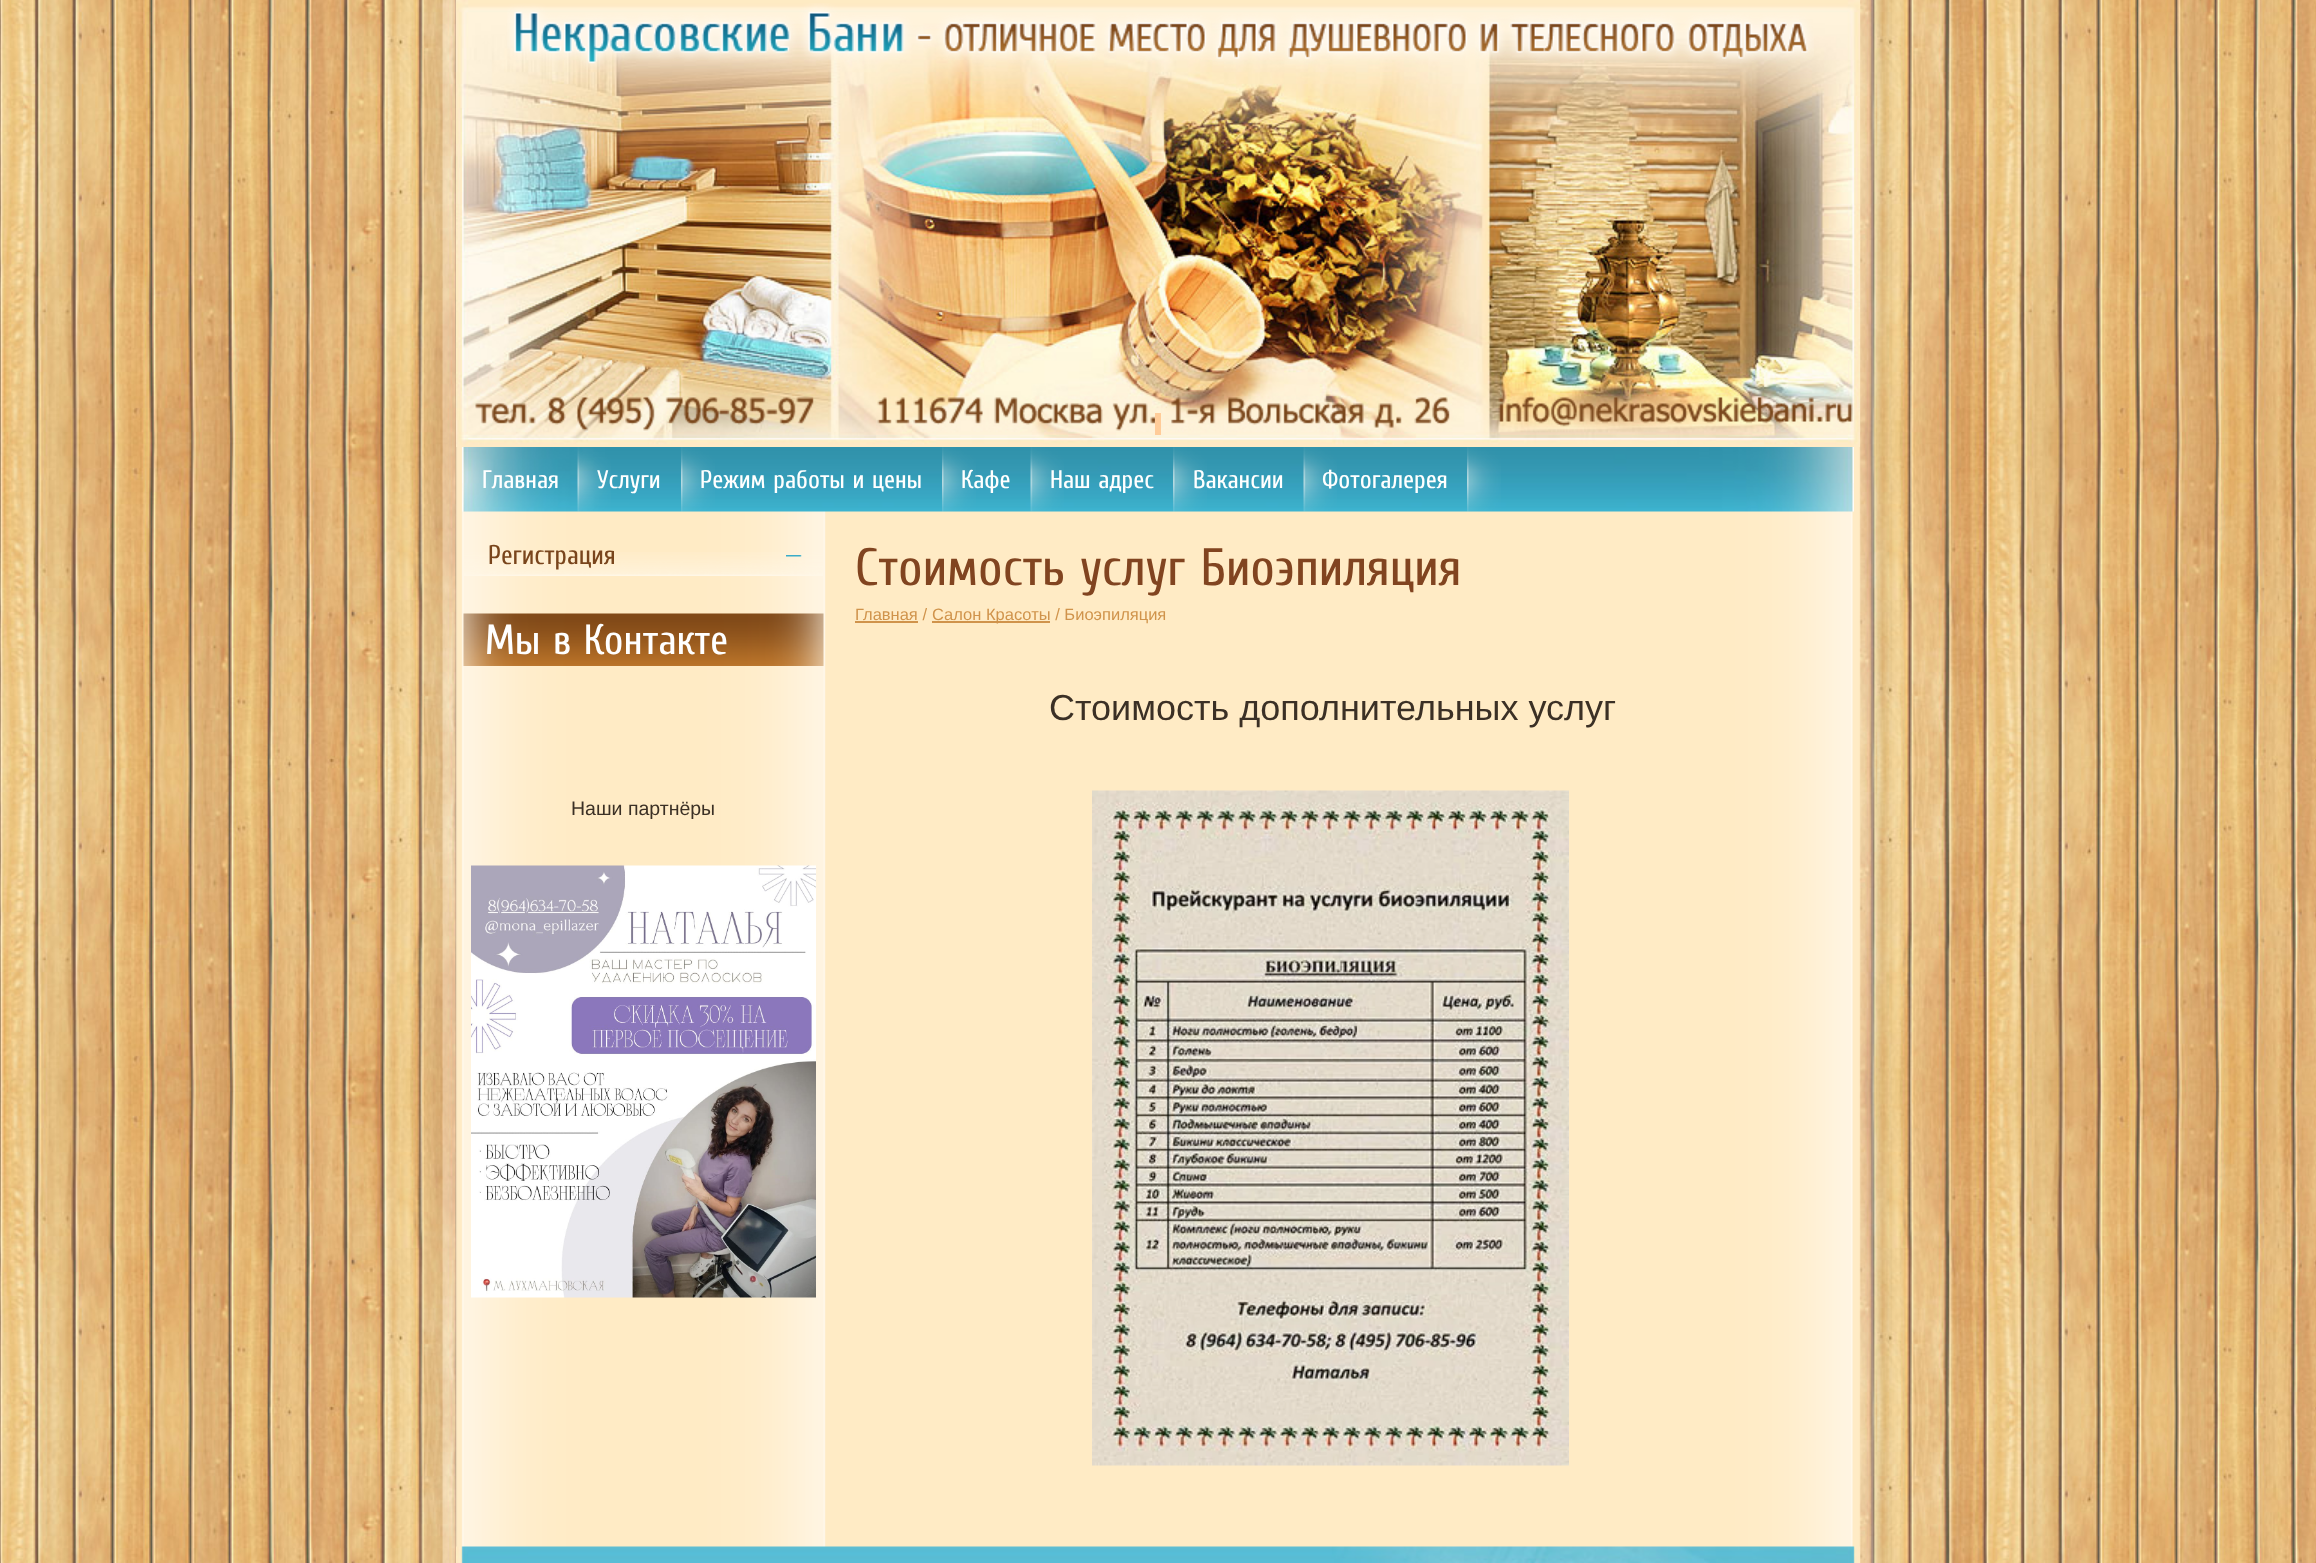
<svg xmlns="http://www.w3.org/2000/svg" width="2316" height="1563">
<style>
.a{font:25.5px Cuprum;fill:#fff}
.b{font:27px Cuprum;fill:#79451c}
.c{font:42px Cuprum;fill:#fff}
.d{font:19.5px Liberation Sans;fill:#3b3025}
.e{font:52.5px Cuprum;fill:#814420}
.f{font:16.5px Liberation Sans;fill:#d0934b}
.g{font:36px Liberation Sans;fill:#3b3025}
</style>
<rect width="100%" height="100%" fill="#fff"/>
<image href="1.png" x="0" y="0" width="2316" height="1563"/>
<image href="2.png" x="424" y="0" width="1468" height="1563"/>
<image href="3.png" x="456" y="0" width="1404" height="447"/>
<image href="4.png" x="507" y="3" width="1307" height="67"/>
<path fill="#fc9" d="M1155 413h6v22H1155z"/>
<image href="5.png" x="462" y="447" width="1392" height="65"/>
<image href="6.png" x="1467" y="447" width="34" height="65"/>
<image href="7.png" x="463" y="452" width="30" height="59"/>
<image href="8.png" x="577" y="447" width="34" height="65"/>
<image href="9.png" x="681" y="447" width="34" height="65"/>
<image href="10.png" x="942" y="447" width="34" height="65"/>
<image href="11.png" x="1030" y="447" width="34" height="65"/>
<image href="12.png" x="1173" y="447" width="34" height="65"/>
<image href="13.png" x="1303" y="447" width="34" height="65"/>
<image href="14.png" x="464" y="552" width="359" height="24"/>
<image href="15.png" x="786" y="555" width="16" height="2"/>
<image href="16.png" x="463" y="613" width="361" height="53"/>
<image href="17.png" x="471" y="865" width="345" height="433"/>
<path fill="#d0934b" d="M855 621h63v2H855z"/>
<path fill="#d0934b" d="M932 621h118v2H932z"/>
<image href="18.png" x="1092" y="790" width="477" height="676"/>
<image href="19.png" x="456" y="1546" width="1404" height="17"/>
<text class="a" x="482" y="488">Главная</text>
<text class="a" x="597" y="488">Услуги</text>
<text class="a" x="700" y="488">Режим работы и цены</text>
<text class="a" x="961" y="488">Кафе</text>
<text class="a" x="1050" y="488">Наш адрес</text>
<text class="a" x="1193" y="488">Вакансии</text>
<text class="a" x="1322" y="488">Фотогалерея</text>
<text class="b" x="488" y="564">Регистрация</text>
<text class="c" x="485" y="654">Мы в Контакте</text>
<text class="d" x="571" y="815">Наши партнёры</text>
<text class="e" x="855" y="585">Стоимость услуг Биоэпиляция</text>
<text class="f" x="855" y="620">Главная /</text>
<text class="f" x="932" y="620">Салон Красоты / Биоэпиляция</text>
<text class="g" x="1049" y="720">Стоимость дополнительных услуг</text>
</svg>
